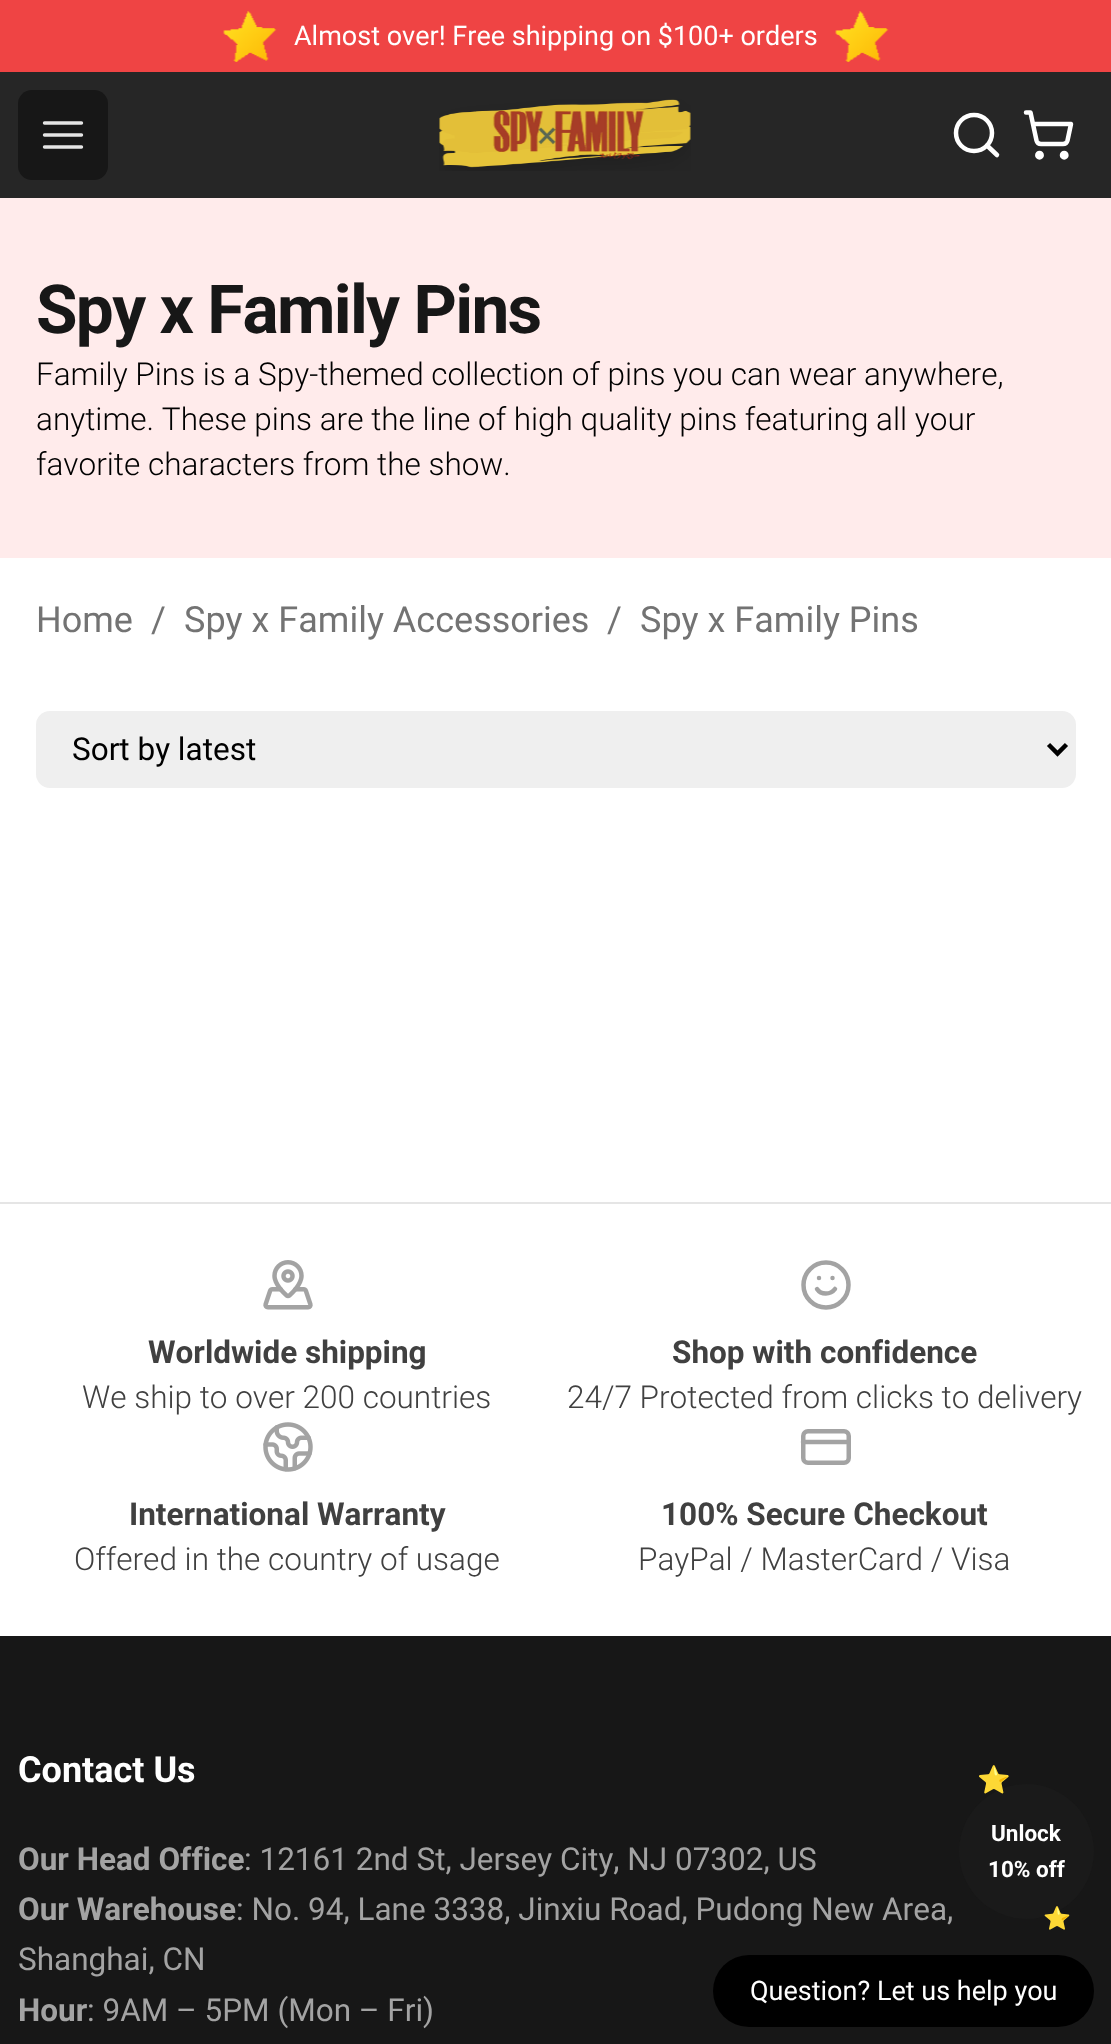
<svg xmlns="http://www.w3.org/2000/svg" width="1111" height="2044">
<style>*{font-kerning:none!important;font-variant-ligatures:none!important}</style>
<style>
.a{font:27px Roboto;fill:#fff}
.b{font:bold 67.5px Roboto;letter-spacing:-1.7px;fill:#171717}
.c{font:300 31.5px Roboto;fill:#000}
.d{font:36px Roboto;fill:#737373}
.e{font:31.5px Roboto;fill:#000}
.f{font:bold 31.5px Roboto;fill:#404040}
.g{font:300 31.5px Roboto;fill:#404040}
.h{font:bold 36px Roboto;fill:#fff}
.i{font:bold 31.5px Roboto;fill:#a3a3a3}
.j{font:31.5px Roboto;fill:#a3a3a3}
.k{font:bold 27px Noto Color Emoji;fill:#ffd700}
.l{font:bold 22.5px Roboto;fill:#fff}
.m{font:bold 22.5px Noto Color Emoji;fill:#ffd700}
</style>
<rect width="100%" height="100%" fill="#fff"/>
<path fill="#ef4444" d="M0 0h1111v72H0z"/>
<image href="1.png" x="223" y="11" width="54" height="51"/>
<image href="1.png" x="835" y="11" width="54" height="51"/>
<path fill="#262626" d="M0 72h1111v126H0z"/>
<rect fill="#171717" x="18" y="90" width="90" height="90" rx="14"/>
<path fill="none" stroke="#e5e5e5" stroke-width="3.4" stroke-linecap="round" stroke-linejoin="round" d="M44.5 123h37m-37 12h37m-37 12h37"/>
<image href="2.png" x="439" y="99" width="252" height="72"/>
<path fill="none" stroke="#fff" stroke-width="4.5" stroke-linecap="round" stroke-linejoin="round" d="M997 155l-10-9.5"/>
<circle fill="none" stroke="#fff" stroke-width="4.5" cx="974" cy="133" r="18"/>
<circle fill="none" stroke="#fff" stroke-width="4.5" cx="1039.5" cy="155.2" r="2.2"/>
<circle fill="none" stroke="#fff" stroke-width="4.5" cx="1064.2" cy="155.2" r="2.2"/>
<path fill="none" stroke="#fff" stroke-width="4.5" stroke-linecap="round" stroke-linejoin="round" d="M1026 112.5h4.5l6 28c.5 2 2.5 3.5 4.5 3.5h22c2 0 4-1.5 4.5-3.5l3.5-16.5h-38"/>
<path fill="#ffebeb" d="M0 198h1111v360H0z"/>
<rect fill="#efefef" x="36" y="711" width="1040" height="77" rx="14"/>
<path fill="none" stroke="#000" stroke-width="4.5" d="M1048.5 744.5l9 9l9-9"/>
<path fill="#e5e5e5" d="M0 1202h1111v2H0z"/>
<image href="3.png" x="263" y="1260" width="50" height="50"/>
<circle fill="none" stroke="#a3a3a3" stroke-width="4.5" cx="826" cy="1285" r="22.5"/>
<path fill="none" stroke="#a3a3a3" stroke-width="4.5" stroke-linecap="round" stroke-linejoin="round" d="M817 1289c4 6 13.5 6 18 0m-16-11h0m13.5 0h0"/>
<image href="4.png" x="263" y="1422" width="50" height="50"/>
<rect fill="none" stroke="#a3a3a3" stroke-width="4.5" x="803.25" y="1431.25" width="45.5" height="31.5" rx="4.75"/>
<path fill="none" stroke="#a3a3a3" stroke-width="4.5" stroke-linecap="round" stroke-linejoin="round" d="M803 1442h45"/>
<path fill="#171717" d="M0 1636h1111v408H0z"/>
<circle fill="#1a1a1a" cx="1026.5" cy="1851.5" r="67.5"/>
<rect fill="#000" x="713" y="1955" width="381" height="72" rx="36"/>
<text class="a" x="294" y="45">Almost over! Free shipping on $100+ orders</text>
<text class="b" x="36" y="333">Spy x Family Pins</text>
<text class="c" x="36" y="385">Family Pins is a Spy-themed collection of pins you can wear anywhere,</text>
<text class="c" x="36" y="430">anytime. These pins are the line of high quality pins featuring all your</text>
<text class="c" x="36" y="475">favorite characters from the show.</text>
<text class="d" x="36" y="632">Home</text>
<text class="d" x="151" y="632">/</text>
<text class="d" x="184" y="632">Spy x Family Accessories</text>
<text class="d" x="607" y="632">/</text>
<text class="d" x="640" y="632">Spy x Family Pins</text>
<text class="e" x="72" y="760">Sort by latest</text>
<text class="f" x="148" y="1363">Worldwide shipping</text>
<text class="g" x="82" y="1408">We ship to over 200 countries</text>
<text class="f" x="672" y="1363">Shop with confidence</text>
<text class="g" x="567" y="1408">24/7 Protected from clicks to delivery</text>
<text class="f" x="129" y="1525">International Warranty</text>
<text class="g" x="74" y="1570">Offered in the country of usage</text>
<text class="f" x="661" y="1525">100% Secure Checkout</text>
<text class="g" x="638" y="1570">PayPal / MasterCard / Visa</text>
<text class="h" x="18" y="1782">Contact Us</text>
<text class="i" x="18" y="1870">Our Head Office</text>
<text class="j" x="244" y="1870">: 12161 2nd St, Jersey City, NJ 07302, US</text>
<text class="i" x="18" y="1920">Our Warehouse</text>
<text class="j" x="236" y="1920">: No. 94, Lane 3338, Jinxiu Road, Pudong New Area,</text>
<text class="j" x="18" y="1970">Shanghai, CN</text>
<text class="i" x="18" y="2021">Hour</text>
<text class="j" x="87" y="2021">: 9AM – 5PM (Mon – Fri)</text>
<text class="k" x="977" y="1789">⭐</text>
<text class="l" x="991" y="1841">Unlock</text>
<text class="l" x="988" y="1877">10% off</text>
<text class="m" x="1043" y="1926">⭐</text>
<text class="a" x="750" y="2000">Question? Let us help you</text>
</svg>
